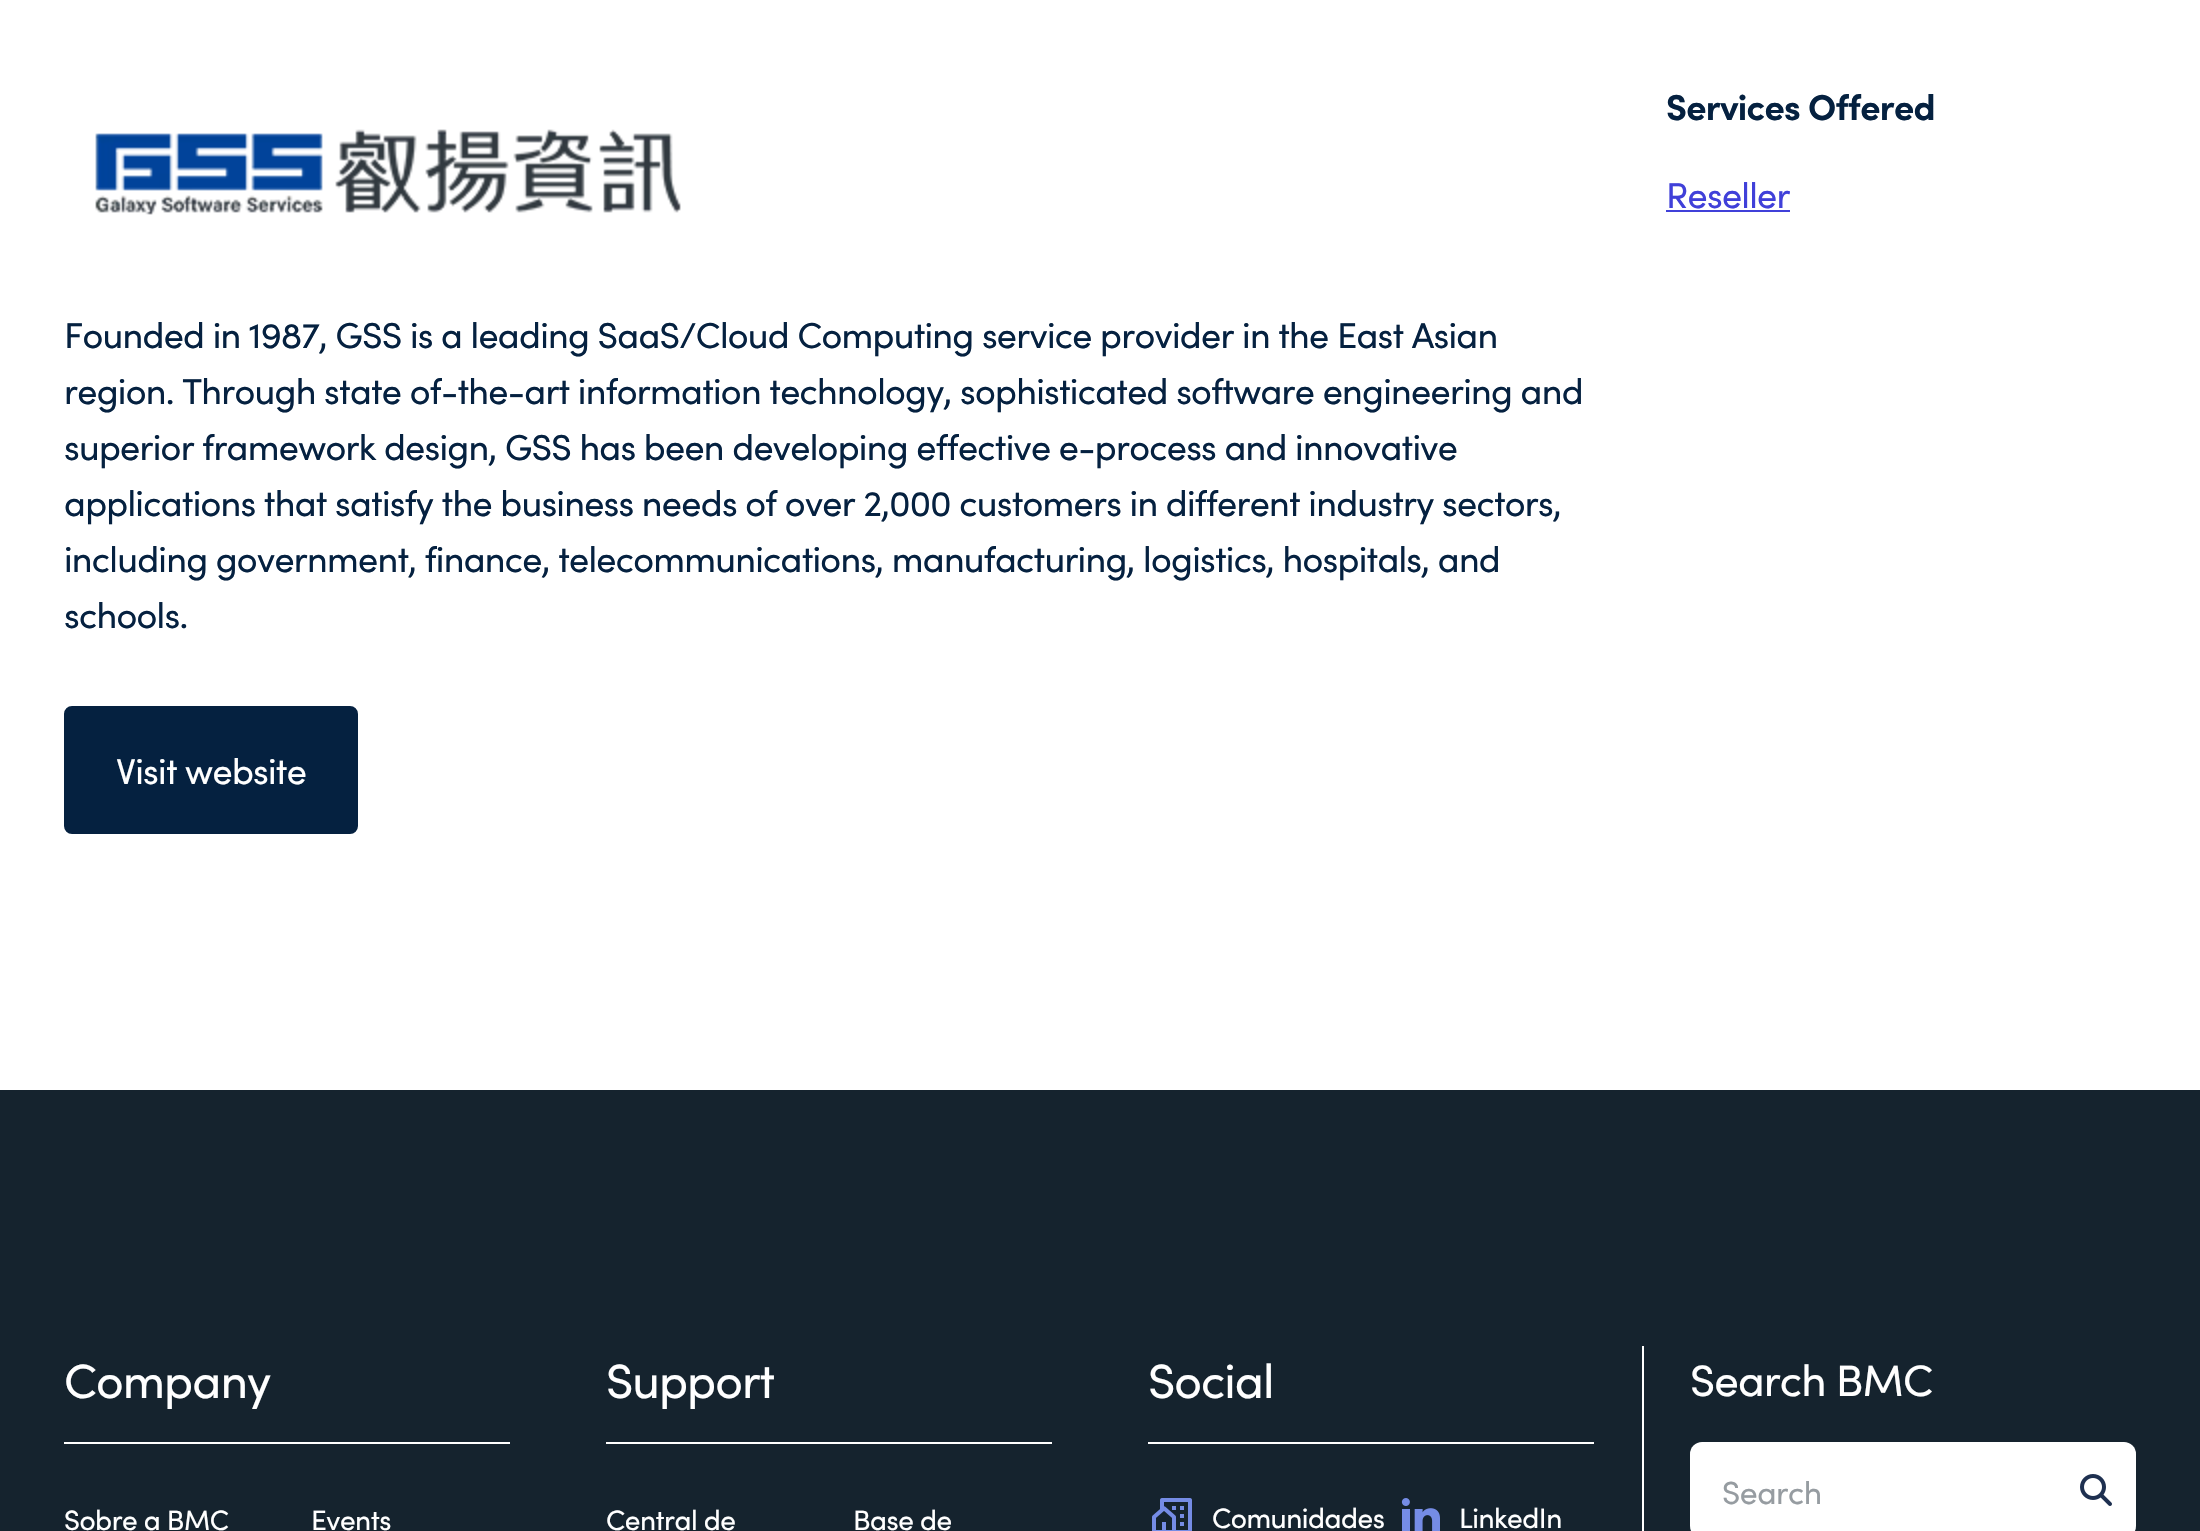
void draw(SkCanvas* canvas) {
  SkPaint paint;
  paint.setAntiAlias(true);
  auto face = [&](const char* family, int weight, float size, bool italic = false) {
    SkFontStyle style(weight, SkFontStyle::kNormal_Width,
      italic ? SkFontStyle::kItalic_Slant : SkFontStyle::kUpright_Slant);
    SkFont result(fontMgr->matchFamilyStyle(family, style), size);
    result.setSubpixel(true);
    return result;
  };
  auto writeSpaced = [&](const char* s, float x, float y, const SkFont& font, const SkPaint& ink, float letter, float word) {
    std::vector<SkGlyphID> glyphs(font.countText(s, strlen(s), SkTextEncoding::kUTF8));
    std::vector<float> xs(glyphs.size());
    font.textToGlyphs(s, strlen(s), SkTextEncoding::kUTF8, glyphs);
    font.getXPos(glyphs, xs, x);
    float extra = 0;
    for (size_t i = 0; i < glyphs.size(); i++) {
      xs[i] += extra;
      extra += letter + word * (glyphs[i] == font.unicharToGlyph(' '));
    }
    canvas->drawTextBlob(SkTextBlob::MakeFromPosHGlyphs(glyphs, xs, y, font), 0, 0, ink);
  };
  auto paste = [&](const char* path, float x, float y, float w, float h) {
    auto image = SkImages::DeferredFromEncodedData(SkData::MakeFromFileName(path));
    canvas->drawImageRect(image, SkRect::MakeXYWH(x, y, w, h), SkSamplingOptions());
  };
  canvas->clear(0xffffffff);
  paint.setColor(0xff4040d9);
  canvas->drawRect(SkRect::MakeXYWH(1666, 210, 124, 2), paint);
  paste("img/1.png", 95, 129, 586, 86);
  paint.setColor(0xff052140);
  canvas->drawRoundRect(SkRect::MakeXYWH(66, 708, 290, 124), 6, 6, paint);
  paint.setStroke(true);
  paint.setStrokeWidth(4);
  canvas->drawRoundRect(SkRect::MakeXYWH(66, 708, 290, 124), 6, 6, paint);
  paint.setStroke(false);
  {
    const struct { float x, y, w, h; SkColor color; } items[] = {
      {0, 1090, 2200, 441, 0xff15232e},
      {64, 1442, 446, 2, 0xffffffff},
      {606, 1442, 446, 2, 0xffffffff},
      {1148, 1442, 446, 2, 0xffffffff},
    };
    for (auto [x, y, w, h, color] : items) {
      paint.setColor(color);
      canvas->drawRect(SkRect::MakeXYWH(x, y, w, h), paint);
    }
  }
  paste("img/2.png", 1152, 1498, 40, 33);
  paste("img/3.png", 1401, 1498, 39, 33);
  canvas->drawRect(SkRect::MakeXYWH(1642, 1346, 2, 185), paint);
  canvas->drawRoundRect(SkRect::MakeXYWH(1690, 1442, 446, 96), 12, 12, paint);
  paste("img/4.png", 2080, 1474, 32, 32);
  auto f0 = face("Sofia", 700, 36);
  paint.setColor(0xff052140);
  writeSpaced("Services Offered", 1666, 120, f0, paint, -0.72f, 0);
  auto f1 = face("Sofia", 400, 36);
  paint.setColor(0xff4040d9);
  writeSpaced("Reseller", 1666, 208, f1, paint, -0.72f, 0);
  paint.setColor(0xff052140);
  {
    const struct { const char* s; float x, y; } items[] = {
      {"Founded in 1987, GSS is a leading SaaS/Cloud Computing service provider in the East Asian", 64, 348},
      {"region. Through state of-the-art information technology, sophisticated software engineering and", 64, 404},
      {"superior framework design, GSS has been developing effective e-process and innovative", 64, 460},
      {"applications that satisfy the business needs of over 2,000 customers in different industry sectors,", 64, 516},
      {"including government, finance, telecommunications, manufacturing, logistics, hospitals, and", 64, 572},
      {"schools.", 64, 628},
    };
    for (auto [s, x, y] : items) {
      writeSpaced(s, x, y, f1, paint, -0.72f, 0);
    }
  }
  paint.setColor(0xffffffff);
  writeSpaced("Visit website", 116, 784, f1, paint, -0.72f, 0);
  auto f2 = face("Sofia", 400, 48);
  writeSpaced("Company", 64, 1398, f2, paint, -1, 0);
  auto f3 = face("Sofia", 400, 28);
  writeSpaced("Sobre a BMC", 64, 1530, f3, paint, -0.5f, 0);
  writeSpaced("Events", 311, 1530, f3, paint, -0.5f, 0);
  writeSpaced("Support", 606, 1398, f2, paint, -1, 0);
  writeSpaced("Central de", 606, 1530, f3, paint, -0.5f, 0);
  writeSpaced("Base de", 853, 1530, f3, paint, -0.5f, 0);
  writeSpaced("Social", 1148, 1398, f2, paint, -1, 0);
  writeSpaced("Comunidades", 1212, 1528, f3, paint, -0.5f, 0);
  writeSpaced("LinkedIn", 1459, 1528, f3, paint, -0.5f, 0);
  auto f4 = face("Sofia", 400, 44);
  writeSpaced("Search BMC", 1690, 1396, f4, paint, -0.9f, 0);
  auto f5 = face("Sofia", 400, 32);
  paint.setColor(0xff969ca1);
  writeSpaced("Search", 1722, 1504, f5, paint, -0.5f, 0);
}
